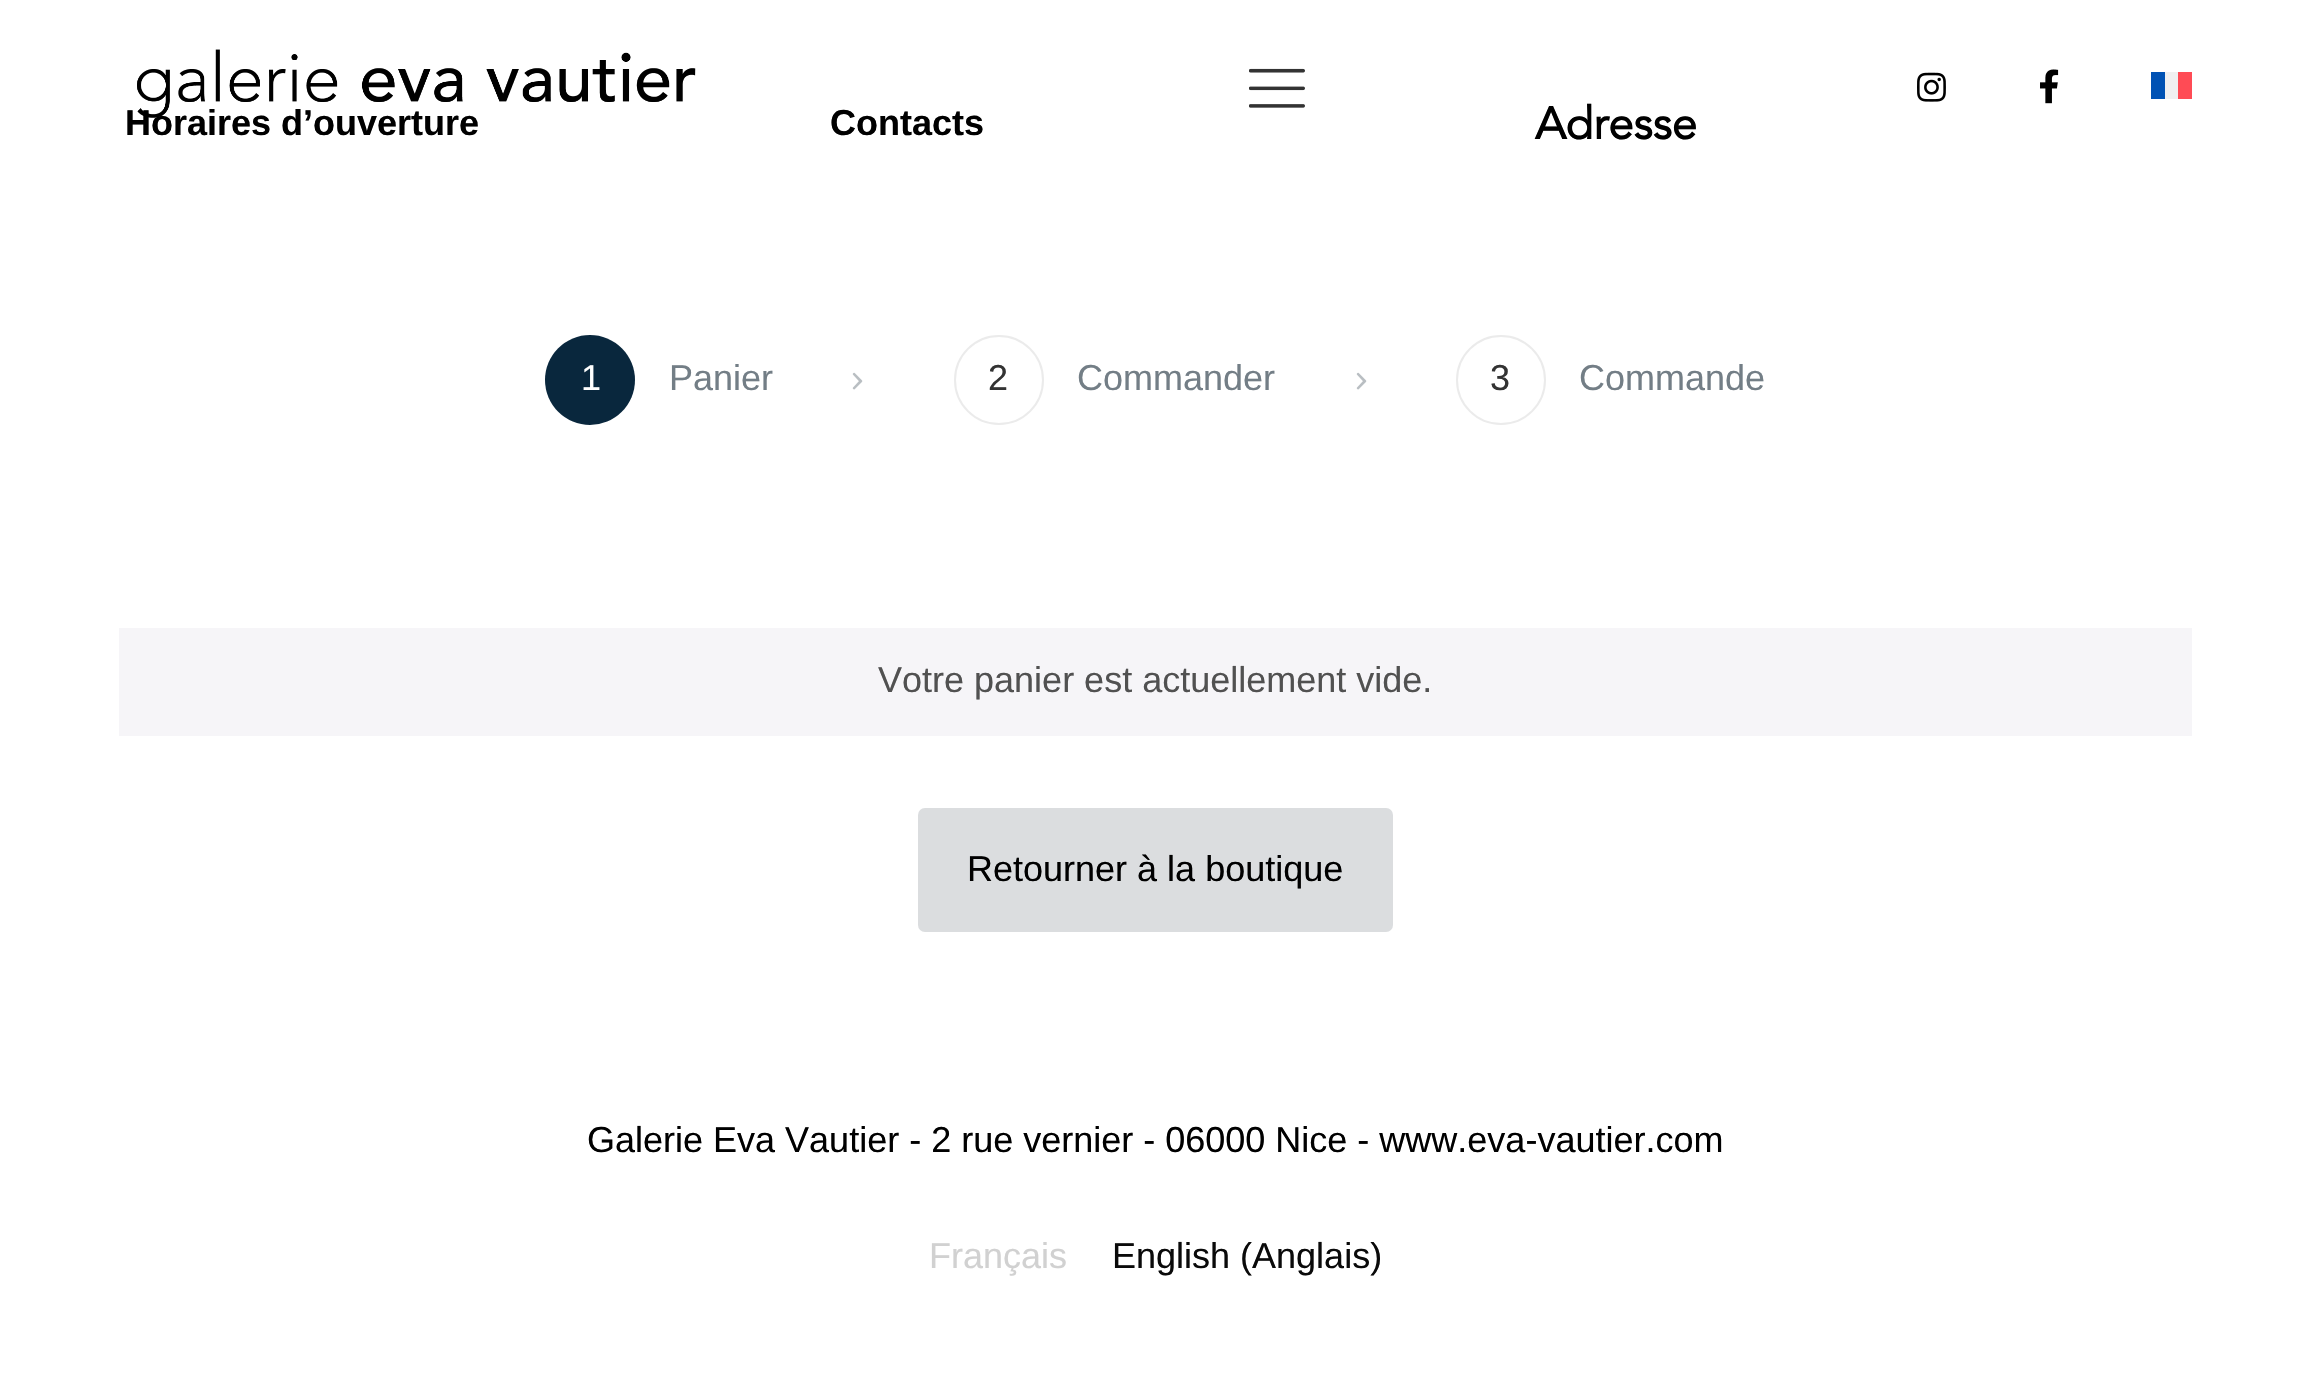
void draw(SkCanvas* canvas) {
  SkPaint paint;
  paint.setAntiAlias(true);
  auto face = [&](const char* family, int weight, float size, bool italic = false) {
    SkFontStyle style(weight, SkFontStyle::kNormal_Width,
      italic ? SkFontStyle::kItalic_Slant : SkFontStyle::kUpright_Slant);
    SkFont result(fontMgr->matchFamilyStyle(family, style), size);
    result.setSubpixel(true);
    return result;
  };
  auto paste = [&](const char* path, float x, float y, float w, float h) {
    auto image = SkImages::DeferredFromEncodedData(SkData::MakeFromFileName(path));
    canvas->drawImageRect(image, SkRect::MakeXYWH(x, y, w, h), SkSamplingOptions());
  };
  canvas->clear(0xffffffff);
  paste("img/2.png", 1249, 68, 56, 40);
  paste("img/3.png", 1917, 72, 29, 30);
  paste("img/4.png", 2040, 69, 19, 35);
  {
    const struct { float x, y, w, h; SkColor color; } items[] = {
      {2151, 72, 14, 27, 0xff0052b4},
      {2165, 72, 13, 27, 0xfff0f0f0},
      {2178, 72, 14, 27, 0xffff4b55},
    };
    for (auto [x, y, w, h, color] : items) {
      paint.setColor(color);
      canvas->drawRect(SkRect::MakeXYWH(x, y, w, h), paint);
    }
  }
  paint.setColor(0xff09273d);
  canvas->drawCircle(590, 380, 45, paint);
  paste("img/5.png", 852, 372, 11, 18);
  paint.setStroke(true);
  paint.setStrokeWidth(2);
  paint.setColor(0xffebebeb);
  canvas->drawCircle(999, 380, 44, paint);
  paste("img/5.png", 1356, 372, 11, 18);
  canvas->drawCircle(1501, 380, 44, paint);
  paint.setStroke(false);
  paint.setColor(0xfff6f5f8);
  canvas->drawRect(SkRect::MakeXYWH(119, 628, 2073, 108), paint);
  paint.setColor(0xffdbdddf);
  canvas->drawRoundRect(SkRect::MakeXYWH(918, 808, 475, 124), 7, 7, paint);
  auto f0 = face("Liberation Sans", 700, 36);
  paint.setColor(0xff000000);
  canvas->drawString("Horaires d’ouverture", 125, 135, f0, paint);
  paste("img/1.png", 137, 49, 559, 69);
  canvas->drawString("Contacts", 830, 135, f0, paint);
  auto f1 = face("Avenir", 700, 45);
  canvas->drawString("Adresse", 1535, 139, f1, paint);
  auto f2 = face("Liberation Sans", 400, 36);
  canvas->drawString("Galerie Eva Vautier - 2 rue vernier - 06000 Nice - www.eva-vautier.com", 587, 1152, f2, paint);
  paint.setColor(0xffd1d1d1);
  canvas->drawString("Français", 929, 1268, f2, paint);
  paint.setColor(0xff0a0a0a);
  canvas->drawString("English (Anglais)", 1112, 1268, f2, paint);
  paint.setColor(0xffffffff);
  canvas->drawString("1", 581, 390, f2, paint);
  paint.setColor(0xff737e86);
  canvas->drawString("Panier", 669, 390, f2, paint);
  paint.setColor(0xff333333);
  canvas->drawString("2", 988, 390, f2, paint);
  paint.setColor(0xff737e86);
  canvas->drawString("Commander", 1077, 390, f2, paint);
  paint.setColor(0xff333333);
  canvas->drawString("3", 1490, 390, f2, paint);
  paint.setColor(0xff737e86);
  canvas->drawString("Commande", 1579, 390, f2, paint);
  paint.setColor(0xff515151);
  canvas->drawString("Votre panier est actuellement vide.", 878, 692, f2, paint);
  paint.setColor(0xff000000);
  canvas->drawString("Retourner à la boutique", 967, 881, f2, paint);
}
